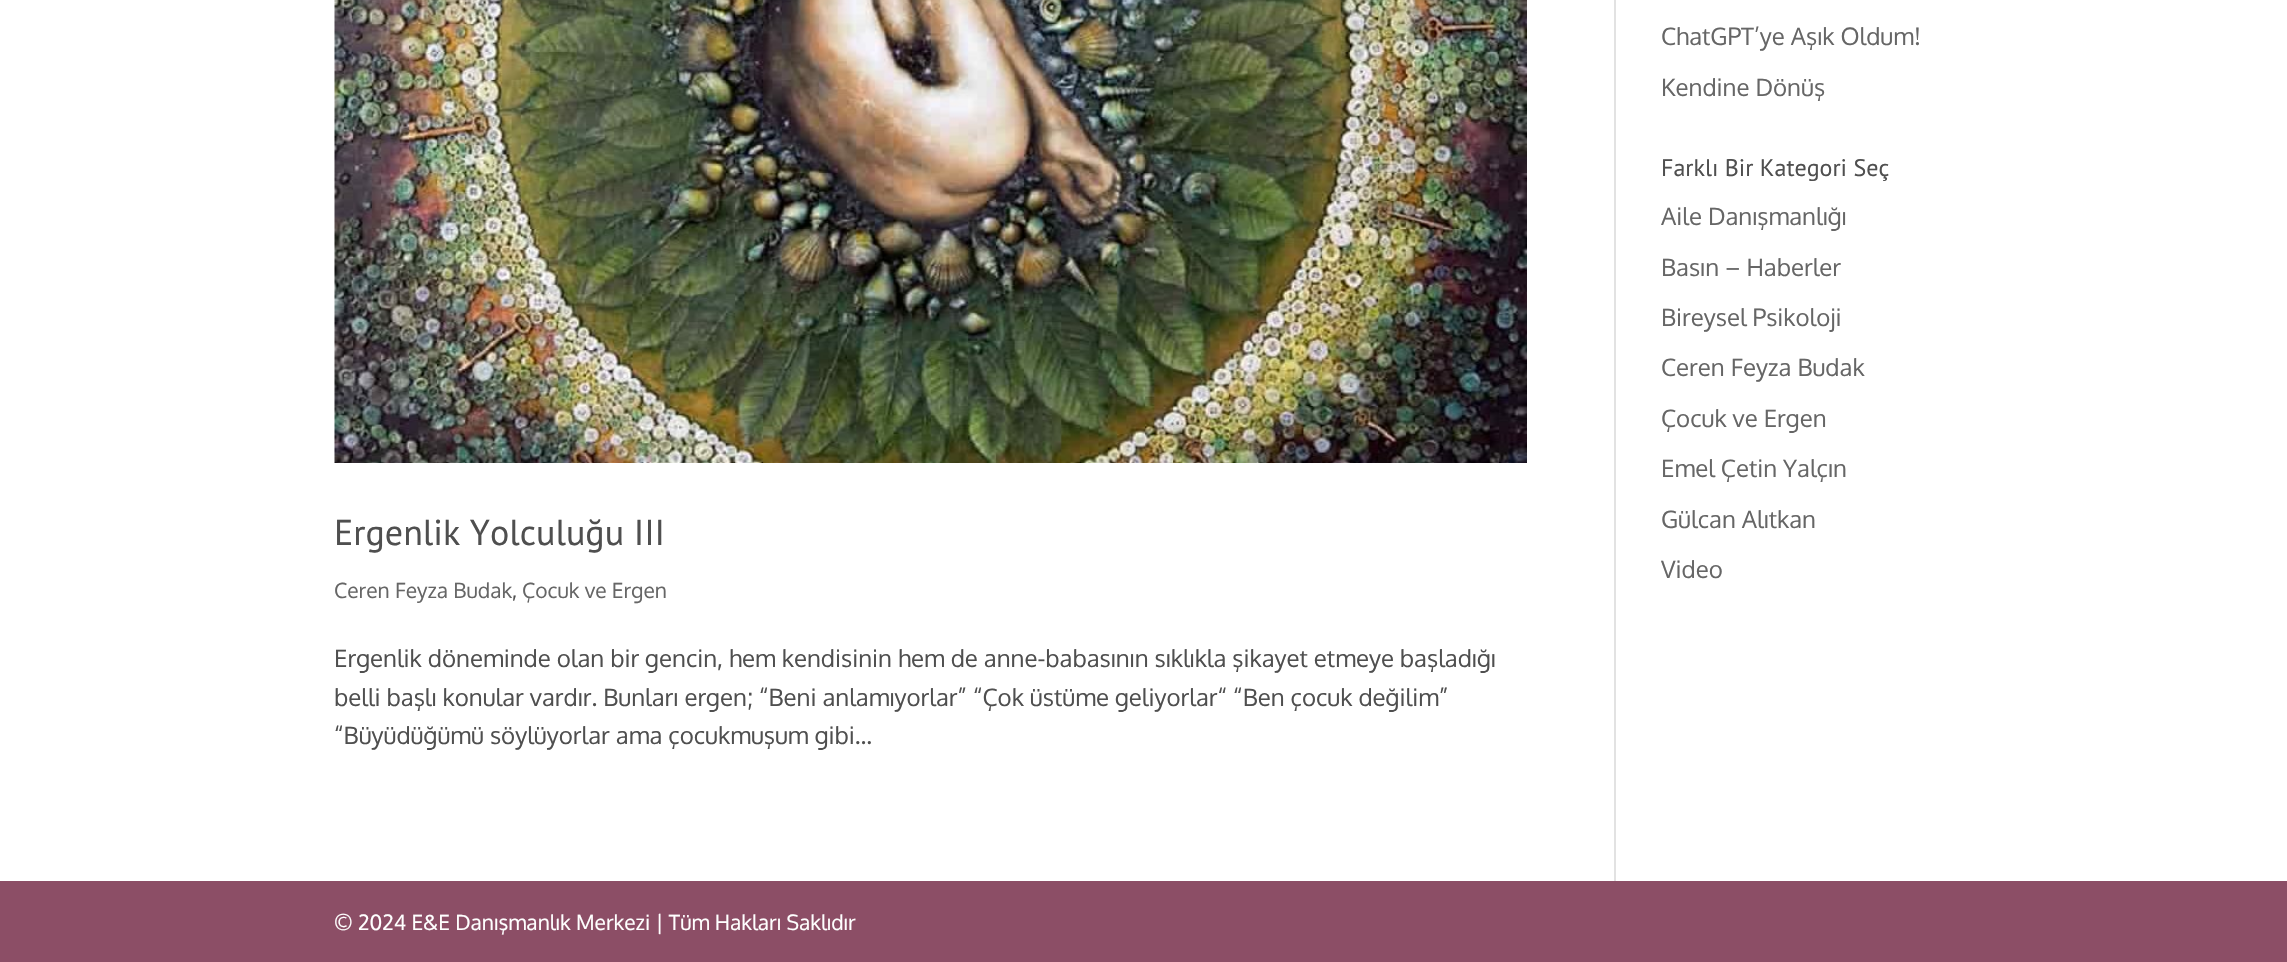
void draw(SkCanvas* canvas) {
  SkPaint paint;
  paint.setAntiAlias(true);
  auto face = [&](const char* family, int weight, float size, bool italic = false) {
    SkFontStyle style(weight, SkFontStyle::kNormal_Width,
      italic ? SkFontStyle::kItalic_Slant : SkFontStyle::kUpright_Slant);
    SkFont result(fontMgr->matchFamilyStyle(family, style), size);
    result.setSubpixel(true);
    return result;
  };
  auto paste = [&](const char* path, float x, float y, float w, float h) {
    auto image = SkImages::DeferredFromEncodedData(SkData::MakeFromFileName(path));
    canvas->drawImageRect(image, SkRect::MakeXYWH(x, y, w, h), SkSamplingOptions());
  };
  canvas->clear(0xffffffff);
  paint.setColor(0xffe2e2e2);
  canvas->drawRect(SkRect::MakeXYWH(1614, 0, 2, 881), paint);
  paste("img/1.png", 334, 0, 1193, 463);
  paint.setColor(0xff8c4e66);
  canvas->drawRect(SkRect::MakeXYWH(0, 881, 2287, 81), paint);
  auto f0 = face("Oxygen", 400, 24);
  paint.setColor(0xff666666);
  canvas->drawString("ChatGPT’ye Aşık Oldum!", 1661, 45, f0, paint);
  canvas->drawString("Kendine Dönüş", 1661, 96, f0, paint);
  auto f1 = face("PT Sans", 400, 24);
  paint.setColor(0xff4f4f4f);
  canvas->drawString("Farklı Bir Kategori Seç", 1661, 176, f1, paint);
  paint.setColor(0xff666666);
  {
    const struct { const char* s; float x, y; } items[] = {
      {"Aile Danışmanlığı", 1661, 225},
      {"Basın – Haberler", 1661, 276},
      {"Bireysel Psikoloji", 1661, 326},
      {"Ceren Feyza Budak", 1661, 376},
      {"Çocuk ve Ergen", 1661, 427},
      {"Emel Çetin Yalçın", 1661, 477},
      {"Gülcan Alıtkan", 1661, 528},
      {"Video", 1661, 578},
    };
    for (auto [s, x, y] : items) {
      canvas->drawString(s, x, y, f0, paint);
    }
  }
  auto f2 = face("PT Sans", 400, 36);
  paint.setColor(0xff4f4f4f);
  canvas->drawString("Ergenlik Yolculuğu III", 334, 545, f2, paint);
  auto f3 = face("Oxygen", 400, 21);
  paint.setColor(0xff666666);
  canvas->drawString("Ceren Feyza Budak", 334, 598, f3, paint);
  paint.setColor(0xff4f4f4f);
  canvas->drawString(",", 512, 598, f3, paint);
  paint.setColor(0xff666666);
  canvas->drawString("Çocuk ve Ergen", 522, 598, f3, paint);
  paint.setColor(0xff4f4f4f);
  {
    const struct { const char* s; float x, y; } items[] = {
      {"Ergenlik döneminde olan bir gencin, hem kendisinin hem de anne-babasının sıklıkla şikayet etmeye başladığı", 334, 667},
      {"belli başlı konular vardır. Bunları ergen; “Beni anlamıyorlar” “Çok üstüme geliyorlar“ “Ben çocuk değilim”", 334, 706},
      {"“Büyüdüğümü söylüyorlar ama çocukmuşum gibi...", 334, 744},
    };
    for (auto [s, x, y] : items) {
      canvas->drawString(s, x, y, f0, paint);
    }
  }
  paint.setColor(0xffffffff);
  canvas->drawString("© 2024 E&E Danışmanlık Merkezi | Tüm Hakları Saklıdır", 334, 930, f3, paint);
}
